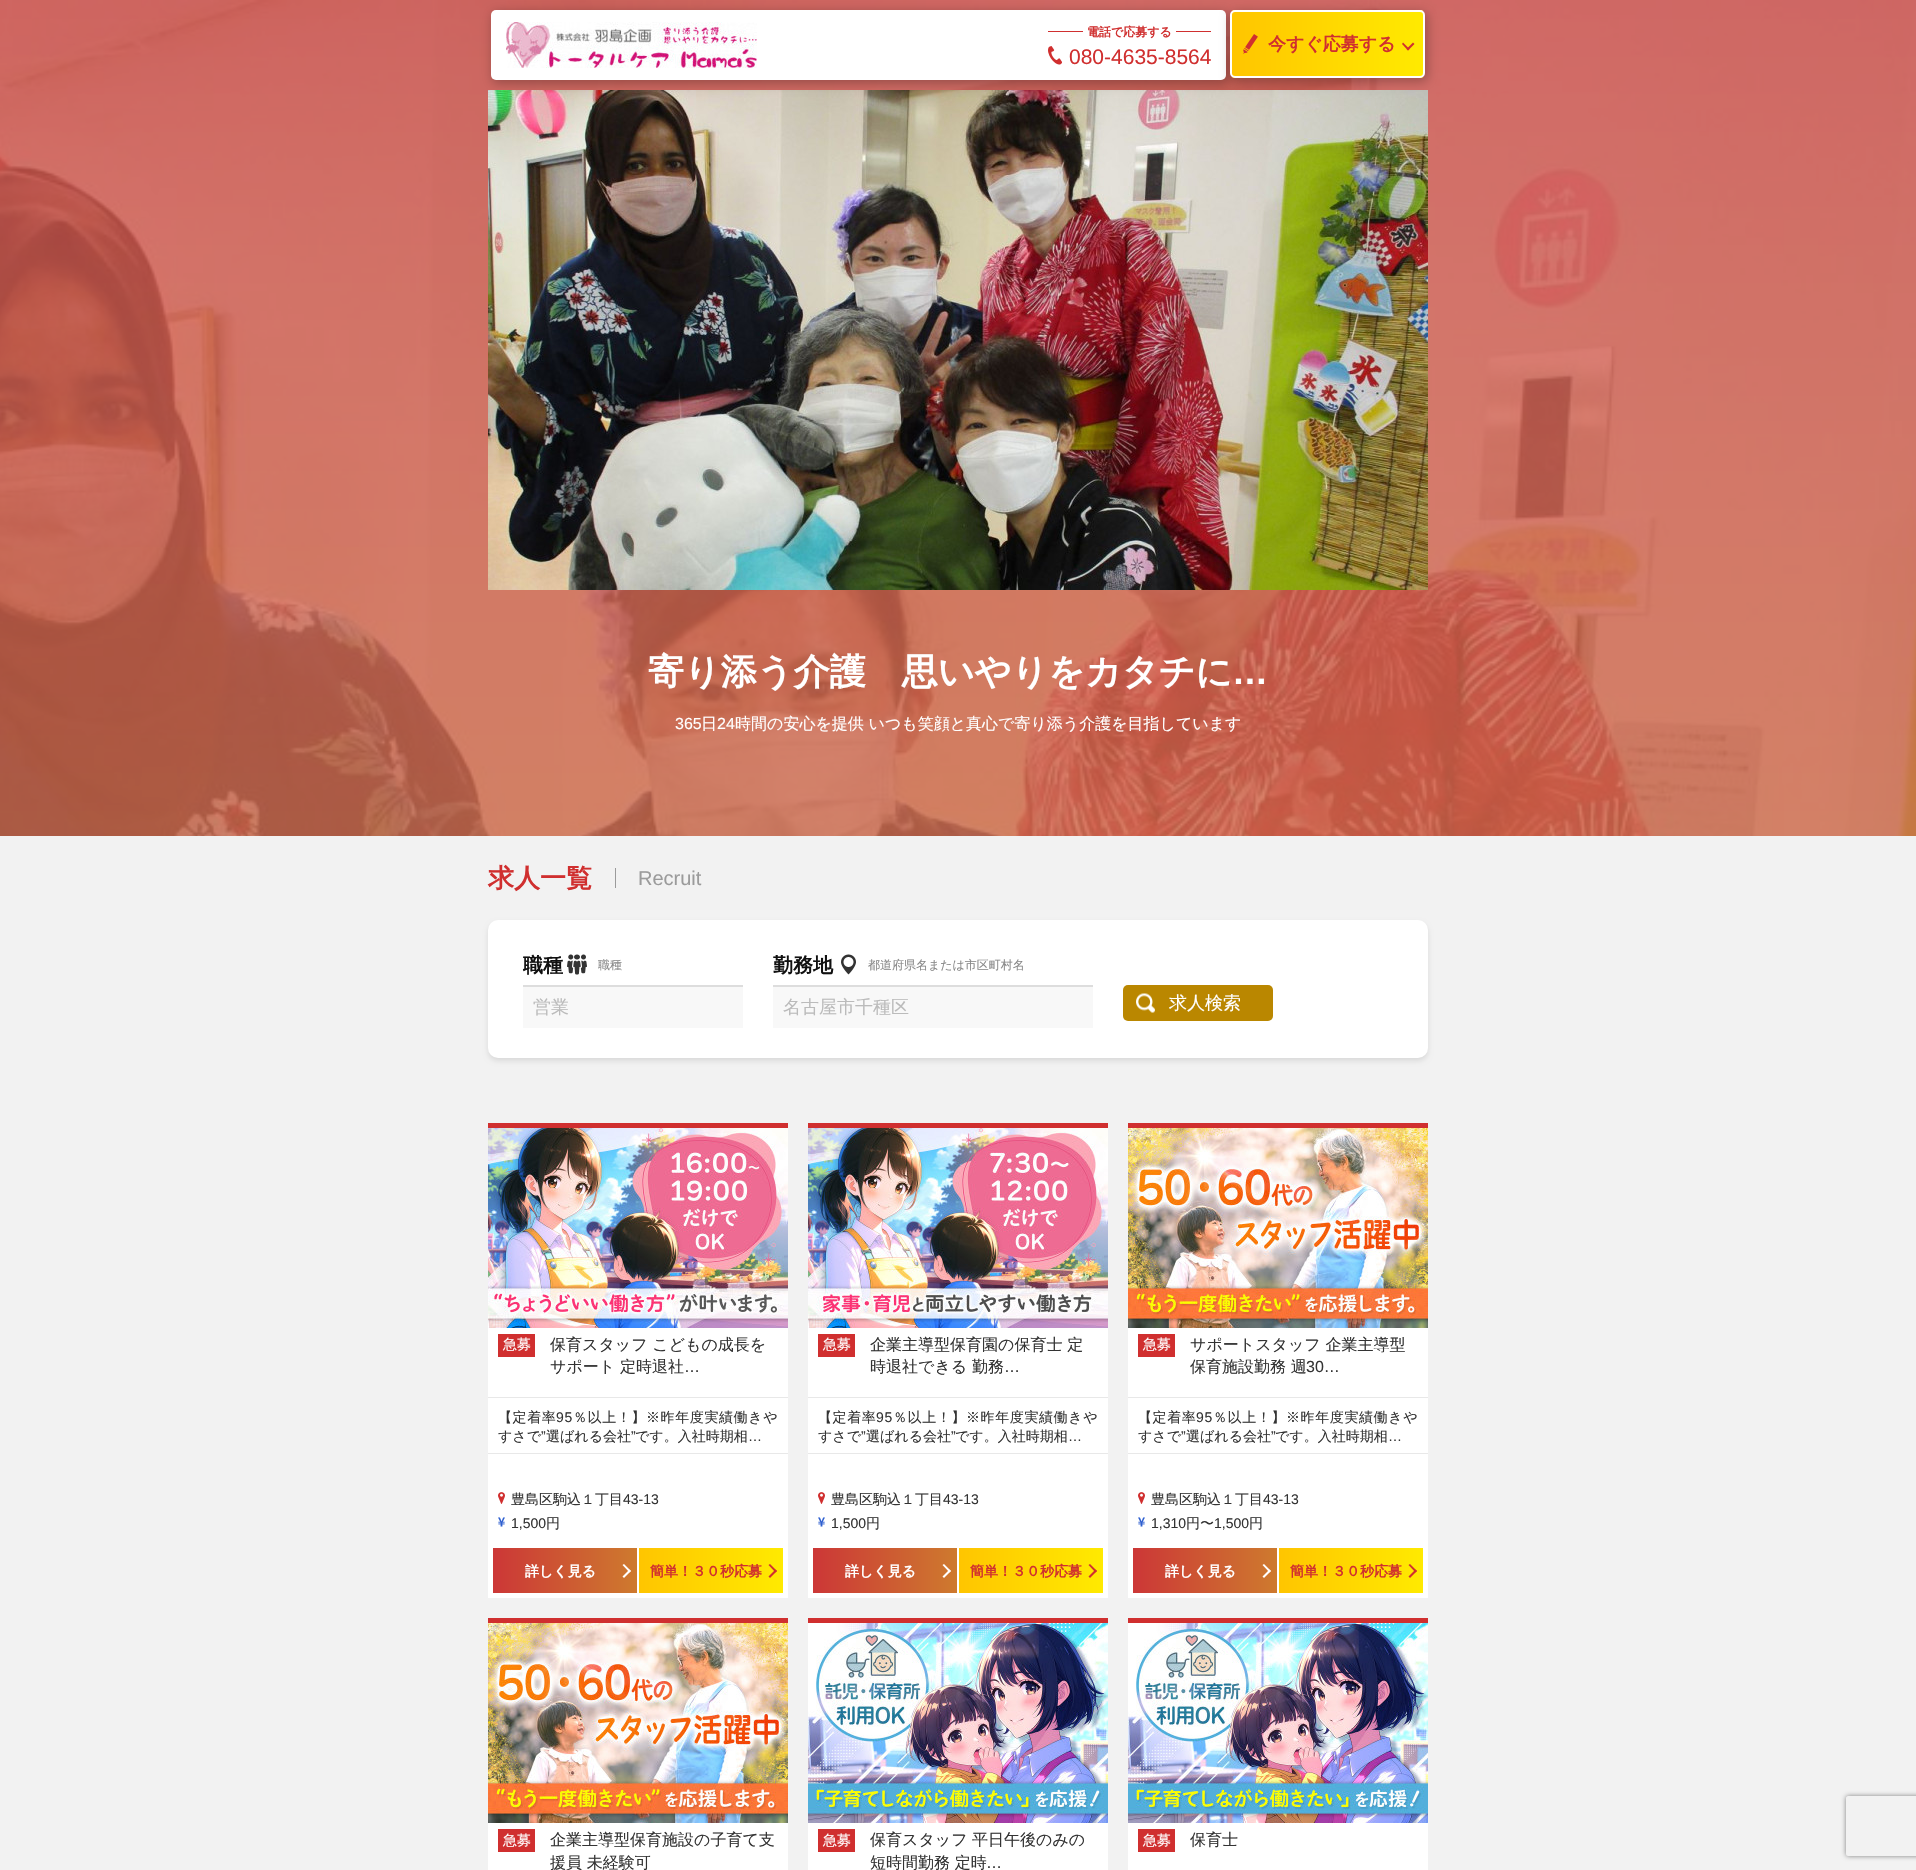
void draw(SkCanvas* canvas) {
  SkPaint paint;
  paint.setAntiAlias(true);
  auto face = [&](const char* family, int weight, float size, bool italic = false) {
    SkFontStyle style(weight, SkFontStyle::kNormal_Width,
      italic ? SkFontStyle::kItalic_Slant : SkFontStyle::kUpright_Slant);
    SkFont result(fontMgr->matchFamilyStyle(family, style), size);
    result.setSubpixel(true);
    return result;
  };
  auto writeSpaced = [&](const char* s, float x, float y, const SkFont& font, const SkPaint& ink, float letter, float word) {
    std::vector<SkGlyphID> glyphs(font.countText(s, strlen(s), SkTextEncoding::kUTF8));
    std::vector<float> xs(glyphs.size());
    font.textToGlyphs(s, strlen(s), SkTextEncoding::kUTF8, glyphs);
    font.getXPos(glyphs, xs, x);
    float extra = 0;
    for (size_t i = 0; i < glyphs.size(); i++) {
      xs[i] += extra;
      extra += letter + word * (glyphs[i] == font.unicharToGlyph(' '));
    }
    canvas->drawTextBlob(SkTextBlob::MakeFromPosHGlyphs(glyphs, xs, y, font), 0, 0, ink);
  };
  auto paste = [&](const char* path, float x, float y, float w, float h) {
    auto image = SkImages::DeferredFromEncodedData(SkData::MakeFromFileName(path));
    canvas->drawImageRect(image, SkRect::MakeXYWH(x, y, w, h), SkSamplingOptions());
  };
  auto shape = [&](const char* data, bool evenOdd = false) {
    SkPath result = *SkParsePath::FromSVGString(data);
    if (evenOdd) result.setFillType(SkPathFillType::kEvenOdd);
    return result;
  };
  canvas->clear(0xffffffff);
  paste("img/1.png", 0, 0, 1916, 836);
  paste("img/5.png", 488, 90, 940, 500);
  paint.setColor(0x40000000);
  paint.setMaskFilter(SkMaskFilter::MakeBlur(kNormal_SkBlurStyle, 5.5f));
  canvas->drawRoundRect(SkRect::MakeXYWH(492, 12, 737, 72), 6, 6, paint);
  paint.setMaskFilter(nullptr);
  paint.setColor(0xffffffff);
  canvas->drawRoundRect(SkRect::MakeXYWH(491, 10, 735, 70), 5, 5, paint);
  paste("img/2.png", 506, 22, 251, 46);
  paint.setColor(0xffd02f2f);
  canvas->drawRect(SkRect::MakeXYWH(1048, 31, 35, 1), paint);
  canvas->drawRect(SkRect::MakeXYWH(1176, 31, 35, 1), paint);
  paste("img/3.png", 1048, 46, 14, 19);
  paint.setColor(0x40000000);
  paint.setMaskFilter(SkMaskFilter::MakeBlur(kNormal_SkBlurStyle, 5.5f));
  canvas->drawRoundRect(SkRect::MakeXYWH(1231, 12, 197, 70), 6, 6, paint);
  paint.setMaskFilter(nullptr);
  canvas->save();
  canvas->clipPath(shape("M1235 10H1420C1423 10 1425 12 1425 15V73C1425 76 1423 78 1420 78H1235C1232 78 1230 76 1230 73V15C1230 12 1232 10 1235 10Z"), true);
  {
    const SkColor colors[] = {0xffffc500, 0xffffea00};
    const float stops[] = {0, 1};
    const SkPoint ends[] = {{1232, 44}, {1423, 44}};
    paint.setShader(SkGradientShader::MakeLinear(ends, colors, stops, 2, SkTileMode::kClamp));
    paint.setAlpha(255);
  }
  canvas->drawRect(SkRect::MakeXYWH(1232, 10, 191, 68), paint);
  canvas->restore();
  paint.setStroke(true);
  paint.setStrokeWidth(2);
  paint.setShader(nullptr);
  paint.setColor(0xffffffff);
  canvas->drawRoundRect(SkRect::MakeXYWH(1231, 11, 193, 66), 4, 4, paint);
  paste("img/4.png", 1243, 34, 15, 20);
  paint.setStroke(false);
  paint.setColor(0xffd02f2f);
  canvas->drawPath(shape("M1413 42.5L1414.5 44L1408 50.5L1406.5 49Z"), paint);
  canvas->drawPath(shape("M1403 42.5L1409.5 49L1408 50.5L1402 44Z"), paint);
  paint.setColor(0xfff2f2f2);
  canvas->drawRect(SkRect::MakeXYWH(0, 836, 1916, 1034), paint);
  paint.setColor(0xff9b9b9b);
  canvas->drawRect(SkRect::MakeXYWH(615, 868, 1, 20), paint);
  paint.setColor(0x1a000000);
  paint.setMaskFilter(SkMaskFilter::MakeBlur(kNormal_SkBlurStyle, 2.5f));
  canvas->drawRoundRect(SkRect::MakeXYWH(488, 923, 940, 138), 10, 10, paint);
  paint.setMaskFilter(nullptr);
  paint.setColor(0xffffffff);
  canvas->drawRoundRect(SkRect::MakeXYWH(488, 920, 940, 138), 10, 10, paint);
  paste("img/6.png", 567, 954, 20, 21);
  paint.setColor(0xfff8f8f8);
  canvas->drawRect(SkRect::MakeXYWH(523, 987, 220, 41), paint);
  paint.setColor(0xffdddddd);
  canvas->drawRect(SkRect::MakeXYWH(523, 985, 220, 2), paint);
  paste("img/7.png", 841, 954, 15, 21);
  paint.setColor(0xfff8f8f8);
  canvas->drawRect(SkRect::MakeXYWH(773, 987, 320, 41), paint);
  paint.setColor(0xffdddddd);
  canvas->drawRect(SkRect::MakeXYWH(773, 985, 320, 2), paint);
  paint.setColor(0xffba8700);
  canvas->drawRoundRect(SkRect::MakeXYWH(1123, 985, 150, 36), 5, 5, paint);
  paste("img/8.png", 1136, 993, 19, 20);
  paint.setColor(0xffd02f2f);
  canvas->drawRect(SkRect::MakeXYWH(488, 1123, 300, 5), paint);
  paste("img/9.png", 488, 1128, 300, 200);
  {
    const struct { float x, y, w, h; SkColor color; } items[] = {
      {488, 1328, 300, 125, 0xffffffff},
      {498, 1334, 37, 23, 0xffd02f2f},
      {488, 1397, 300, 1, 0xffe8e8e8},
      {488, 1454, 300, 144, 0xffffffff},
      {488, 1453, 300, 1, 0xffe8e8e8},
    };
    for (auto [x, y, w, h, color] : items) {
      paint.setColor(color);
      canvas->drawRect(SkRect::MakeXYWH(x, y, w, h), paint);
    }
  }
  paste("img/10.png", 498, 1492, 7, 12);
  paste("img/11.png", 498, 1517, 7, 10);
  {
    const SkColor colors[] = {0xffcc3737, 0xffce7a2e};
    const float stops[] = {0, 1};
    const SkPoint ends[] = {{493, 1571}, {637, 1571}};
    paint.setShader(SkGradientShader::MakeLinear(ends, colors, stops, 2, SkTileMode::kClamp));
    paint.setAlpha(255);
  }
  canvas->drawRect(SkRect::MakeXYWH(493, 1548, 144, 45), paint);
  paint.setShader(nullptr);
  paint.setColor(0xffffffff);
  canvas->drawPath(shape("M622.5 1565L624 1564L631 1571L629.5 1572.5Z"), paint);
  canvas->drawPath(shape("M622.5 1576.5L629.5 1569.5L631 1571L624 1578Z"), paint);
  {
    const SkColor colors[] = {0xffffc500, 0xffffea00};
    const float stops[] = {0, 1};
    const SkPoint ends[] = {{639, 1571}, {783, 1571}};
    paint.setShader(SkGradientShader::MakeLinear(ends, colors, stops, 2, SkTileMode::kClamp));
    paint.setAlpha(255);
  }
  canvas->drawRect(SkRect::MakeXYWH(639, 1548, 144, 45), paint);
  paint.setShader(nullptr);
  paint.setColor(0xffd02f2f);
  canvas->drawPath(shape("M768.5 1565L770 1564L777 1571L775.5 1572.5Z"), paint);
  canvas->drawPath(shape("M768.5 1576.5L775.5 1569.5L777 1571L770 1578Z"), paint);
  canvas->drawRect(SkRect::MakeXYWH(808, 1123, 300, 5), paint);
  paste("img/12.png", 808, 1128, 300, 200);
  {
    const struct { float x, y, w, h; SkColor color; } items[] = {
      {808, 1328, 300, 125, 0xffffffff},
      {818, 1334, 37, 23, 0xffd02f2f},
      {808, 1397, 300, 1, 0xffe8e8e8},
      {808, 1454, 300, 144, 0xffffffff},
      {808, 1453, 300, 1, 0xffe8e8e8},
    };
    for (auto [x, y, w, h, color] : items) {
      paint.setColor(color);
      canvas->drawRect(SkRect::MakeXYWH(x, y, w, h), paint);
    }
  }
  paste("img/10.png", 818, 1492, 7, 12);
  paste("img/11.png", 818, 1517, 7, 10);
  {
    const SkColor colors[] = {0xffcc3737, 0xffce7a2e};
    const float stops[] = {0, 1};
    const SkPoint ends[] = {{813, 1571}, {957, 1571}};
    paint.setShader(SkGradientShader::MakeLinear(ends, colors, stops, 2, SkTileMode::kClamp));
    paint.setAlpha(255);
  }
  canvas->drawRect(SkRect::MakeXYWH(813, 1548, 144, 45), paint);
  paint.setShader(nullptr);
  paint.setColor(0xffffffff);
  canvas->drawPath(shape("M942.5 1565L944 1564L951 1571L949.5 1572.5Z"), paint);
  canvas->drawPath(shape("M942.5 1576.5L949.5 1569.5L951 1571L944 1578Z"), paint);
  {
    const SkColor colors[] = {0xffffc500, 0xffffea00};
    const float stops[] = {0, 1};
    const SkPoint ends[] = {{959, 1571}, {1103, 1571}};
    paint.setShader(SkGradientShader::MakeLinear(ends, colors, stops, 2, SkTileMode::kClamp));
    paint.setAlpha(255);
  }
  canvas->drawRect(SkRect::MakeXYWH(959, 1548, 144, 45), paint);
  paint.setShader(nullptr);
  paint.setColor(0xffd02f2f);
  canvas->drawPath(shape("M1088.5 1565L1090 1564L1097 1571L1095.5 1572.5Z"), paint);
  canvas->drawPath(shape("M1088.5 1576.5L1095.5 1569.5L1097 1571L1090 1578Z"), paint);
  canvas->drawRect(SkRect::MakeXYWH(1128, 1123, 300, 5), paint);
  paste("img/13.png", 1128, 1128, 300, 200);
  {
    const struct { float x, y, w, h; SkColor color; } items[] = {
      {1128, 1328, 300, 125, 0xffffffff},
      {1138, 1334, 37, 23, 0xffd02f2f},
      {1128, 1397, 300, 1, 0xffe8e8e8},
      {1128, 1454, 300, 144, 0xffffffff},
      {1128, 1453, 300, 1, 0xffe8e8e8},
    };
    for (auto [x, y, w, h, color] : items) {
      paint.setColor(color);
      canvas->drawRect(SkRect::MakeXYWH(x, y, w, h), paint);
    }
  }
  paste("img/10.png", 1138, 1492, 7, 12);
  paste("img/11.png", 1138, 1517, 7, 10);
  {
    const SkColor colors[] = {0xffcc3737, 0xffce7a2e};
    const float stops[] = {0, 1};
    const SkPoint ends[] = {{1133, 1571}, {1277, 1571}};
    paint.setShader(SkGradientShader::MakeLinear(ends, colors, stops, 2, SkTileMode::kClamp));
    paint.setAlpha(255);
  }
  canvas->drawRect(SkRect::MakeXYWH(1133, 1548, 144, 45), paint);
  paint.setShader(nullptr);
  paint.setColor(0xffffffff);
  canvas->drawPath(shape("M1262.5 1565L1264 1564L1271 1571L1269.5 1572.5Z"), paint);
  canvas->drawPath(shape("M1262.5 1576.5L1269.5 1569.5L1271 1571L1264 1578Z"), paint);
  {
    const SkColor colors[] = {0xffffc500, 0xffffea00};
    const float stops[] = {0, 1};
    const SkPoint ends[] = {{1279, 1571}, {1423, 1571}};
    paint.setShader(SkGradientShader::MakeLinear(ends, colors, stops, 2, SkTileMode::kClamp));
    paint.setAlpha(255);
  }
  canvas->drawRect(SkRect::MakeXYWH(1279, 1548, 144, 45), paint);
  paint.setShader(nullptr);
  paint.setColor(0xffd02f2f);
  canvas->drawPath(shape("M1408.5 1565L1410 1564L1417 1571L1415.5 1572.5Z"), paint);
  canvas->drawPath(shape("M1408.5 1576.5L1415.5 1569.5L1417 1571L1410 1578Z"), paint);
  canvas->drawRect(SkRect::MakeXYWH(488, 1618, 300, 5), paint);
  paste("img/13.png", 488, 1623, 300, 200);
  {
    const struct { float x, y, w, h; SkColor color; } items[] = {
      {488, 1823, 300, 47, 0xffffffff},
      {498, 1829, 37, 23, 0xffd02f2f},
      {808, 1618, 300, 5, 0xffd02f2f},
    };
    for (auto [x, y, w, h, color] : items) {
      paint.setColor(color);
      canvas->drawRect(SkRect::MakeXYWH(x, y, w, h), paint);
    }
  }
  paste("img/14.png", 808, 1623, 300, 200);
  {
    const struct { float x, y, w, h; SkColor color; } items[] = {
      {808, 1823, 300, 47, 0xffffffff},
      {818, 1829, 37, 23, 0xffd02f2f},
      {1128, 1618, 300, 5, 0xffd02f2f},
    };
    for (auto [x, y, w, h, color] : items) {
      paint.setColor(color);
      canvas->drawRect(SkRect::MakeXYWH(x, y, w, h), paint);
    }
  }
  paste("img/14.png", 1128, 1623, 300, 200);
  paint.setColor(0xffffffff);
  canvas->drawRect(SkRect::MakeXYWH(1128, 1823, 300, 47), paint);
  paint.setColor(0xffd02f2f);
  canvas->drawRect(SkRect::MakeXYWH(1138, 1829, 37, 23), paint);
  canvas->save();
  canvas->clipPath(shape("M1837 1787H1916V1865H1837ZM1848 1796H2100C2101 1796 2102 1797 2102 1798V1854C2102 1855 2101 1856 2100 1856H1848C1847 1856 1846 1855 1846 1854V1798C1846 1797 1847 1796 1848 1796Z", true), true);
  paint.setColor(0xff808080);
  paint.setMaskFilter(SkMaskFilter::MakeBlur(kNormal_SkBlurStyle, 2.5f));
  canvas->drawRoundRect(SkRect::MakeXYWH(1846, 1796, 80, 60), 2, 2, paint);
  paint.setMaskFilter(nullptr);
  canvas->restore();
  auto f0 = face("WenQuanYi Zen Hei", 700, 12);
  paint.setColor(0xffd02f2f);
  canvas->drawString("電話で応募する", 1087, 36, f0, paint);
  auto f1 = face("Liberation Sans", 400, 21);
  canvas->drawString("080-4635-8564", 1069, 64, f1, paint);
  auto f2 = face("WenQuanYi Zen Hei", 700, 18);
  canvas->drawString("今すぐ応募する", 1268, 50, f2, paint);
  auto f3 = face("WenQuanYi Zen Hei", 700, 36);
  paint.setColor(0xffffffff);
  canvas->drawString("寄り添う介護　思いやりをカタチに", 648, 684, f3, paint);
  auto f4 = face("Liberation Sans", 700, 36);
  canvas->drawString("…", 1232, 684, f4, paint);
  auto f5 = face("Liberation Sans", 400, 16);
  canvas->drawString("365", 675, 729, f5, paint);
  auto f6 = face("WenQuanYi Zen Hei", 500, 16);
  canvas->drawString("日", 701, 729, f6, paint);
  canvas->drawString("24", 717, 729, f5, paint);
  canvas->drawString("時間の安心を提供 いつも笑顔と真心で寄り添う介護を目指しています", 735, 729, f6, paint);
  auto f7 = face("WenQuanYi Zen Hei", 700, 26);
  paint.setColor(0xffd02f2f);
  canvas->drawString("求人一覧", 488, 887, f7, paint);
  auto f8 = face("Liberation Sans", 400, 20);
  paint.setColor(0xff9b9b9b);
  canvas->drawString("Recruit", 638, 885, f8, paint);
  auto f9 = face("WenQuanYi Zen Hei", 700, 20);
  paint.setColor(0xff111111);
  canvas->drawString("職種", 523, 972, f9, paint);
  auto f10 = face("WenQuanYi Zen Hei", 500, 12);
  paint.setColor(0xff888888);
  canvas->drawString("職種", 598, 969, f10, paint);
  auto f11 = face("WenQuanYi Zen Hei", 500, 18);
  paint.setColor(0xffbbbbbb);
  canvas->drawString("営業", 533, 1013, f11, paint);
  paint.setColor(0xff111111);
  canvas->drawString("勤務地", 773, 972, f9, paint);
  paint.setColor(0xff888888);
  canvas->drawString("都道府県名または市区町村名", 868, 969, f10, paint);
  paint.setColor(0xffbbbbbb);
  canvas->drawString("名古屋市千種区", 783, 1013, f11, paint);
  paint.setColor(0xffffffff);
  canvas->drawString("求人検索", 1169, 1009, f11, paint);
  auto f12 = face("WenQuanYi Zen Hei", 500, 14);
  canvas->drawString("急募", 503, 1349, f12, paint);
  paint.setColor(0xff333333);
  canvas->drawString("保育スタッフ こどもの成長を", 550, 1350, f6, paint);
  canvas->drawString("サポート 定時退社", 550, 1372, f6, paint);
  canvas->drawString("…", 684, 1372, f5, paint);
  writeSpaced("【定着率", 498, 1422, f12, paint, 0.6f, 0);
  auto f13 = face("Liberation Sans", 400, 14);
  writeSpaced("95", 556, 1422, f13, paint, 0.6f, 0);
  writeSpaced("％以上！】※昨年度実績働きや", 573, 1422, f12, paint, 0.6f, 0);
  canvas->drawString("すさで", 498, 1441, f12, paint);
  canvas->drawString("”", 541, 1441, f13, paint);
  canvas->drawString("選ばれる会社", 546, 1441, f12, paint);
  canvas->drawString("”", 631, 1441, f13, paint);
  canvas->drawString("です。入社時期相", 635, 1441, f12, paint);
  canvas->drawString("…", 748, 1441, f13, paint);
  canvas->drawString("豊島区駒込１丁目", 511, 1504, f12, paint);
  canvas->drawString("43-13", 623, 1504, f13, paint);
  canvas->drawString("1,500", 511, 1528, f13, paint);
  canvas->drawString("円", 546, 1528, f12, paint);
  auto f14 = face("WenQuanYi Zen Hei", 700, 14);
  paint.setColor(0xffffffff);
  canvas->drawString("詳しく見る", 525, 1576, f14, paint);
  paint.setColor(0xffd02f2f);
  canvas->drawString("簡単！３０秒応募", 650, 1576, f14, paint);
  paint.setColor(0xffffffff);
  canvas->drawString("急募", 823, 1349, f12, paint);
  paint.setColor(0xff333333);
  canvas->drawString("企業主導型保育園の保育士 定", 870, 1350, f6, paint);
  canvas->drawString("時退社できる 勤務", 870, 1372, f6, paint);
  canvas->drawString("…", 1004, 1372, f5, paint);
  writeSpaced("【定着率", 818, 1422, f12, paint, 0.6f, 0);
  writeSpaced("95", 876, 1422, f13, paint, 0.6f, 0);
  writeSpaced("％以上！】※昨年度実績働きや", 893, 1422, f12, paint, 0.6f, 0);
  canvas->drawString("すさで", 818, 1441, f12, paint);
  canvas->drawString("”", 861, 1441, f13, paint);
  canvas->drawString("選ばれる会社", 866, 1441, f12, paint);
  canvas->drawString("”", 951, 1441, f13, paint);
  canvas->drawString("です。入社時期相", 955, 1441, f12, paint);
  canvas->drawString("…", 1068, 1441, f13, paint);
  canvas->drawString("豊島区駒込１丁目", 831, 1504, f12, paint);
  canvas->drawString("43-13", 943, 1504, f13, paint);
  canvas->drawString("1,500", 831, 1528, f13, paint);
  canvas->drawString("円", 866, 1528, f12, paint);
  paint.setColor(0xffffffff);
  canvas->drawString("詳しく見る", 845, 1576, f14, paint);
  paint.setColor(0xffd02f2f);
  canvas->drawString("簡単！３０秒応募", 970, 1576, f14, paint);
  paint.setColor(0xffffffff);
  canvas->drawString("急募", 1143, 1349, f12, paint);
  paint.setColor(0xff333333);
  canvas->drawString("サポートスタッフ 企業主導型", 1190, 1350, f6, paint);
  canvas->drawString("保育施設勤務 週", 1190, 1372, f6, paint);
  canvas->drawString("30…", 1306, 1372, f5, paint);
  writeSpaced("【定着率", 1138, 1422, f12, paint, 0.6f, 0);
  writeSpaced("95", 1196, 1422, f13, paint, 0.6f, 0);
  writeSpaced("％以上！】※昨年度実績働きや", 1213, 1422, f12, paint, 0.6f, 0);
  canvas->drawString("すさで", 1138, 1441, f12, paint);
  canvas->drawString("”", 1181, 1441, f13, paint);
  canvas->drawString("選ばれる会社", 1186, 1441, f12, paint);
  canvas->drawString("”", 1271, 1441, f13, paint);
  canvas->drawString("です。入社時期相", 1275, 1441, f12, paint);
  canvas->drawString("…", 1388, 1441, f13, paint);
  canvas->drawString("豊島区駒込１丁目", 1151, 1504, f12, paint);
  canvas->drawString("43-13", 1263, 1504, f13, paint);
  canvas->drawString("1,310", 1151, 1528, f13, paint);
  canvas->drawString("円〜", 1186, 1528, f12, paint);
  canvas->drawString("1,500", 1214, 1528, f13, paint);
  canvas->drawString("円", 1249, 1528, f12, paint);
  paint.setColor(0xffffffff);
  canvas->drawString("詳しく見る", 1165, 1576, f14, paint);
  paint.setColor(0xffd02f2f);
  canvas->drawString("簡単！３０秒応募", 1290, 1576, f14, paint);
  paint.setColor(0xffffffff);
  canvas->drawString("急募", 503, 1845, f12, paint);
  paint.setColor(0xff333333);
  canvas->drawString("企業主導型保育施設の子育て支", 550, 1845, f6, paint);
  canvas->drawString("援員 未経験可", 550, 1868, f6, paint);
  paint.setColor(0xffffffff);
  canvas->drawString("急募", 823, 1845, f12, paint);
  paint.setColor(0xff333333);
  {
    const struct { const char* s; float x, y; } items[] = {
      {"保育スタッフ", 870, 1845},
      {"平日午後のみの", 972, 1845},
      {"短時間勤務 定時", 870, 1868},
    };
    for (auto [s, x, y] : items) {
      canvas->drawString(s, x, y, f6, paint);
    }
  }
  canvas->drawString("…", 986, 1868, f5, paint);
  paint.setColor(0xffffffff);
  canvas->drawString("急募", 1143, 1845, f12, paint);
  paint.setColor(0xff333333);
  canvas->drawString("保育士", 1190, 1845, f6, paint);
}
